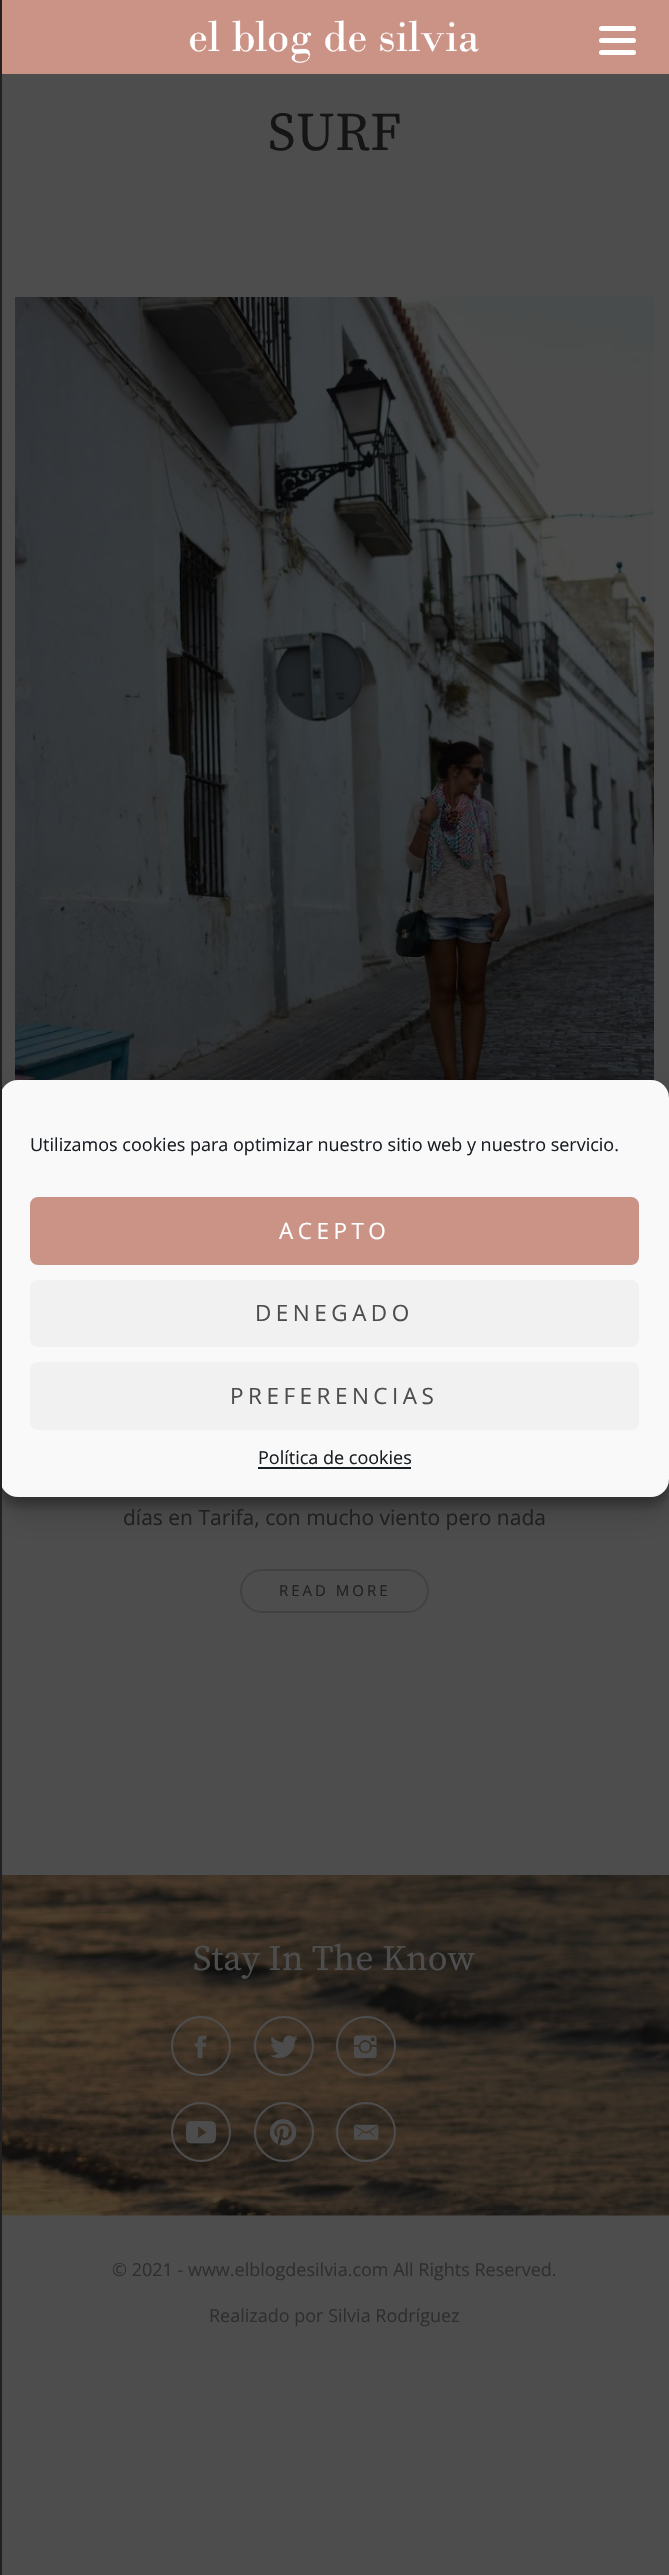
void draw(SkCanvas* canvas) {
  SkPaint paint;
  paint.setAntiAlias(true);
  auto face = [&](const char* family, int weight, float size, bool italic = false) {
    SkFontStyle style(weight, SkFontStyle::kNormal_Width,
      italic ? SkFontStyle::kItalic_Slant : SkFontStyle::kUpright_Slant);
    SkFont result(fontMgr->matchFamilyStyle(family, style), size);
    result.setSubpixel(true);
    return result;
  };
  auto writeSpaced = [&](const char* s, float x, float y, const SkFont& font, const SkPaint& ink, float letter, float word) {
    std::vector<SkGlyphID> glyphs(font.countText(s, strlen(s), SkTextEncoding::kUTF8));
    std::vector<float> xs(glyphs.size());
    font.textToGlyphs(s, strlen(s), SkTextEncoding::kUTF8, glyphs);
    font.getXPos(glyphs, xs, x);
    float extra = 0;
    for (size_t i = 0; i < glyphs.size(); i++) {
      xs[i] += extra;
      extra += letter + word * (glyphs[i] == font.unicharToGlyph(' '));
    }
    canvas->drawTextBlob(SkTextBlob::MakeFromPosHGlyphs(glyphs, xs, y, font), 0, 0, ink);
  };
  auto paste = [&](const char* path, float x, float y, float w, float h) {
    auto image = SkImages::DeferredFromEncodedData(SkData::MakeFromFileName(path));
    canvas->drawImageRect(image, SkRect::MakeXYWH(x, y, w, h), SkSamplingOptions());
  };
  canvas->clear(0xff4d4d4d);
  paste("img/2.png", 15, 297, 639, 784);
  paint.setColor(0x3b000000);
  paint.setMaskFilter(SkMaskFilter::MakeBlur(kNormal_SkBlurStyle, 4.5f));
  canvas->drawRoundRect(SkRect::MakeXYWH(0, 1089, 669, 417), 18, 18, paint);
  paint.setMaskFilter(nullptr);
  paint.setColor(0x30000000);
  paint.setMaskFilter(SkMaskFilter::MakeBlur(kNormal_SkBlurStyle, 15));
  canvas->drawRoundRect(SkRect::MakeXYWH(0, 1095, 669, 417), 18, 18, paint);
  paint.setMaskFilter(nullptr);
  paint.setColor(0xfff9f9f9);
  canvas->drawRoundRect(SkRect::MakeXYWH(0, 1080, 669, 417), 18, 18, paint);
  paint.setColor(0xff212121);
  canvas->drawRect(SkRect::MakeXYWH(0, 0, 2, 2575), paint);
  paint.setColor(0xffcb9286);
  canvas->drawRect(SkRect::MakeXYWH(2, 0, 667, 74), paint);
  paint.setColor(0xffffffff);
  canvas->drawRoundRect(SkRect::MakeXYWH(599, 38, 37, 5), 2.5f, 2.5f, paint);
  canvas->drawRoundRect(SkRect::MakeXYWH(599, 26, 37, 5), 2.5f, 2.5f, paint);
  canvas->drawRoundRect(SkRect::MakeXYWH(599, 50, 37, 5), 2.5f, 2.5f, paint);
  paste("img/1.png", 189, 20, 290, 43);
  paint.setStroke(true);
  paint.setStrokeWidth(2);
  paint.setColor(0xff414141);
  canvas->drawRoundRect(SkRect::MakeXYWH(241, 1570, 187, 42), 21, 21, paint);
  paint.setStroke(false);
  paint.setColor(0xffcb9286);
  canvas->drawRoundRect(SkRect::MakeXYWH(31, 1198, 607, 66), 7, 7, paint);
  paint.setStroke(true);
  canvas->drawRoundRect(SkRect::MakeXYWH(31, 1198, 607, 66), 7, 7, paint);
  paint.setStroke(false);
  paint.setColor(0xfff1f1f1);
  canvas->drawRoundRect(SkRect::MakeXYWH(30, 1280, 609, 67), 8, 8, paint);
  canvas->drawRoundRect(SkRect::MakeXYWH(30, 1362, 609, 68), 8, 8, paint);
  paint.setColor(0xff191e23);
  canvas->drawRect(SkRect::MakeXYWH(258, 1467, 153, 2), paint);
  paste("img/3.png", 2, 1875, 667, 341);
  paint.setStroke(true);
  paint.setColor(0xff4d4d4d);
  canvas->drawCircle(201, 2046, 29, paint);
  paste("img/4.png", 195, 2035, 12, 23);
  canvas->drawCircle(284, 2046, 29, paint);
  paste("img/5.png", 270, 2035, 28, 23);
  canvas->drawCircle(366, 2046, 29, paint);
  paste("img/6.png", 354, 2035, 23, 23);
  canvas->drawCircle(201, 2132, 29, paint);
  paste("img/7.png", 186, 2121, 30, 23);
  canvas->drawCircle(284, 2132, 29, paint);
  paste("img/8.png", 270, 2119, 27, 27);
  canvas->drawCircle(366, 2132, 29, paint);
  paste("img/9.png", 354, 2124, 25, 16);
  auto f0 = face("Source Serif Pro", 400, 54);
  paint.setStroke(false);
  paint.setColor(0xff151515);
  canvas->drawString("SURF", 268, 150, f0, paint);
  auto f1 = face("Open Sans", 400, 21);
  paint.setColor(0xff1f1f1f);
  canvas->drawString("días en Tarifa, con mucho viento pero nada", 123, 1525, f1, paint);
  auto f2 = face("Open Sans", 400, 15);
  writeSpaced("READ MORE", 279, 1596, f2, paint, 3, 0);
  auto f3 = face("Open Sans", 400, 18);
  paint.setColor(0xff191e23);
  canvas->drawString("Utilizamos cookies para optimizar nuestro sitio web y nuestro servicio.", 30, 1151, f3, paint);
  auto f4 = face("Open Sans", 400, 22.5f);
  paint.setColor(0xffffffff);
  writeSpaced("ACEPTO", 279, 1239, f4, paint, 4.5f, 0);
  paint.setColor(0xff4d4d4d);
  writeSpaced("DENEGADO", 255, 1321, f4, paint, 4.5f, 0);
  writeSpaced("PREFERENCIAS", 230, 1404, f4, paint, 4.5f, 0);
  paint.setColor(0xff191e23);
  canvas->drawString("Política de cookies", 258, 1464, f3, paint);
  auto f5 = face("Source Serif Pro", 400, 36);
  paint.setColor(0xff4d4d4d);
  canvas->drawString("Stay In The Know", 193, 1970, f5, paint);
  paint.setColor(0xff2e2e2e);
  canvas->drawString("© 2021 - www.elblogdesilvia.com All Rights Reserved.", 112, 2276, f3, paint);
  canvas->drawString("Realizado por Silvia Rodríguez", 209, 2322, f3, paint);
}
